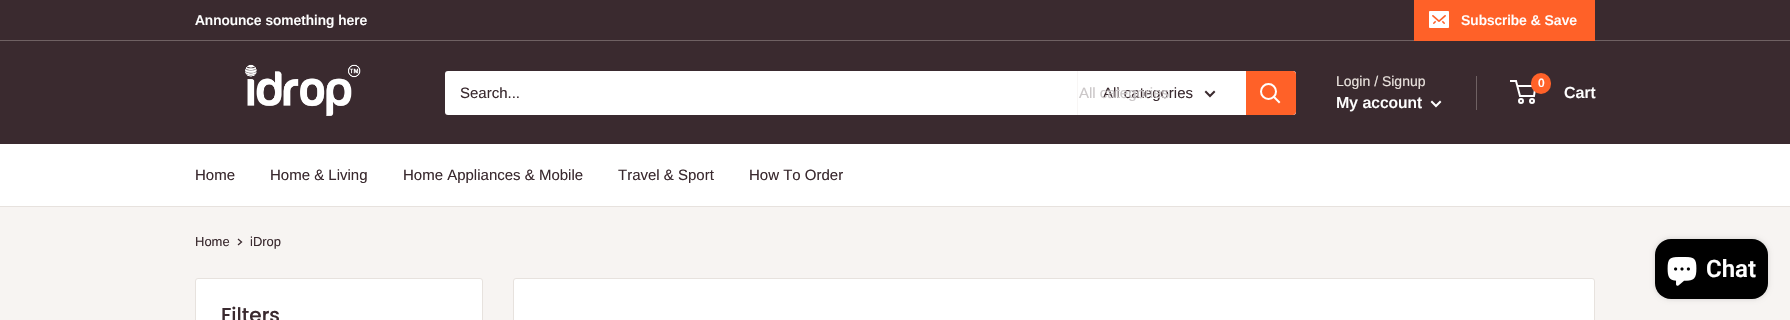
void draw(SkCanvas* canvas) {
  SkPaint paint;
  paint.setAntiAlias(true);
  auto face = [&](const char* family, int weight, float size, bool italic = false) {
    SkFontStyle style(weight, SkFontStyle::kNormal_Width,
      italic ? SkFontStyle::kItalic_Slant : SkFontStyle::kUpright_Slant);
    SkFont result(fontMgr->matchFamilyStyle(family, style), size);
    result.setSubpixel(true);
    return result;
  };
  auto paste = [&](const char* path, float x, float y, float w, float h) {
    auto image = SkImages::DeferredFromEncodedData(SkData::MakeFromFileName(path));
    canvas->drawImageRect(image, SkRect::MakeXYWH(x, y, w, h), SkSamplingOptions());
  };
  auto shape = [&](const char* data, bool evenOdd = false) {
    SkPath result = *SkParsePath::FromSVGString(data);
    if (evenOdd) result.setFillType(SkPathFillType::kEvenOdd);
    return result;
  };
  canvas->clear(0xfff7f4f2);
  {
    const struct { float x, y, w, h; SkColor color; } items[] = {
      {0, 0, 1790, 40, 0xff3a2a2f},
      {0, 40, 1790, 1, 0xff6f6163},
      {1414, 0, 181, 41, 0xffff6128},
    };
    for (auto [x, y, w, h, color] : items) {
      paint.setColor(color);
      canvas->drawRect(SkRect::MakeXYWH(x, y, w, h), paint);
    }
  }
  paste("img/1.png", 1429, 11, 20, 17);
  paint.setColor(0xff3a2a2f);
  canvas->drawRect(SkRect::MakeXYWH(0, 41, 1790, 103), paint);
  paste("img/2.png", 245, 64, 116, 52);
  paint.setColor(0xffffffff);
  canvas->drawRoundRect(SkRect::MakeXYWH(445, 71, 851, 44), 3, 3, paint);
  paint.setColor(0xfff8f6f5);
  canvas->drawRect(SkRect::MakeXYWH(1077, 71, 1, 44), paint);
  paint.setStroke(true);
  paint.setStrokeWidth(2);
  paint.setStrokeCap(SkPaint::kSquare_Cap);
  paint.setColor(0xff3a2a2f);
  canvas->drawPath(shape("M1214 92L1210 96L1206 92"), paint);
  paint.setStroke(false);
  paint.setColor(0xffff6128);
  canvas->drawPath(shape("M1246 71H1293C1294.5 71 1296 72.5 1296 74V112C1296 113.5 1294.5 115 1293 115H1246Z"), paint);
  paint.setStroke(true);
  paint.setColor(0xffffffff);
  canvas->drawPath(shape("M1279 102L1274 97"), paint);
  paint.setStrokeCap(SkPaint::kButt_Cap);
  canvas->drawCircle(1268.5f, 91.5f, 7.5f, paint);
  paint.setStroke(false);
  paint.setColor(0xff6f6163);
  canvas->drawRect(SkRect::MakeXYWH(1476, 76, 1, 34), paint);
  paint.setStroke(true);
  paint.setStrokeCap(SkPaint::kSquare_Cap);
  paint.setColor(0xffffffff);
  canvas->drawPath(shape("M1440 102L1436 106L1432 102"), paint);
  paint.setStrokeCap(SkPaint::kButt_Cap);
  canvas->drawCircle(1521, 101, 2, paint);
  canvas->drawCircle(1532, 101, 2, paint);
  canvas->drawPath(shape("M1517.5 86H1535.5L1534 96H1520L1516 81H1510"), paint);
  paint.setStroke(false);
  paint.setColor(0xffff6128);
  canvas->drawRoundRect(SkRect::MakeXYWH(1531, 73, 20, 21), 10, 10, paint);
  paint.setColor(0xffffffff);
  canvas->drawRect(SkRect::MakeXYWH(0, 144, 1790, 62), paint);
  paint.setColor(0xffe7e2de);
  canvas->drawRect(SkRect::MakeXYWH(0, 206, 1790, 1), paint);
  paint.setStroke(true);
  paint.setStrokeWidth(1.3f);
  paint.setStrokeCap(SkPaint::kSquare_Cap);
  paint.setColor(0xff3a2a2f);
  canvas->drawPath(shape("M238.5 239.5L241.5 242L238.5 244.5"), paint);
  paint.setStroke(false);
  paint.setColor(0xffffffff);
  canvas->drawRoundRect(SkRect::MakeXYWH(195.5f, 278.5f, 287, 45), 2.5f, 2.5f, paint);
  paint.setStroke(true);
  paint.setStrokeWidth(1);
  paint.setStrokeCap(SkPaint::kButt_Cap);
  paint.setColor(0xffe7e2de);
  canvas->drawRoundRect(SkRect::MakeXYWH(195.5f, 278.5f, 287, 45), 2.5f, 2.5f, paint);
  paint.setStroke(false);
  paint.setColor(0xffffffff);
  canvas->drawRoundRect(SkRect::MakeXYWH(513.5f, 278.5f, 1081, 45), 2.5f, 2.5f, paint);
  paint.setStroke(true);
  paint.setColor(0xffe7e2de);
  canvas->drawRoundRect(SkRect::MakeXYWH(513.5f, 278.5f, 1081, 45), 2.5f, 2.5f, paint);
  paint.setStroke(false);
  paint.setColor(0x26000000);
  paint.setMaskFilter(SkMaskFilter::MakeBlur(kNormal_SkBlurStyle, 2.5f));
  canvas->drawRoundRect(SkRect::MakeXYWH(1655, 239, 113, 60), 16, 16, paint);
  paint.setMaskFilter(nullptr);
  paint.setColor(0xff000000);
  canvas->drawRoundRect(SkRect::MakeXYWH(1655, 239, 113, 60), 16, 16, paint);
  paste("img/3.png", 1667, 257, 30, 29);
  auto f0 = face("Arimo", 600, 14);
  paint.setColor(0xffffffff);
  canvas->drawString("Announce something here", 195, 25, f0, paint);
  canvas->drawString("Subscribe & Save", 1461, 25, f0, paint);
  auto f1 = face("Arimo", 400, 15);
  paint.setColor(0xff3a2a2f);
  canvas->drawString("Search...", 460, 98, f1, paint);
  canvas->drawString("All categories", 1103, 98, f1, paint);
  paint.setColor(0xffcbc7c8);
  canvas->drawString("All categories", 1079, 98, f1, paint);
  auto f2 = face("Arimo", 400, 14);
  paint.setColor(0xffe9e2dd);
  canvas->drawString("Login / Signup", 1336, 86, f2, paint);
  auto f3 = face("Arimo", 600, 16);
  paint.setColor(0xffffffff);
  canvas->drawString("My account", 1336, 108, f3, paint);
  auto f4 = face("Arimo", 600, 12);
  canvas->drawString("0", 1538, 87, f4, paint);
  canvas->drawString("Cart", 1564, 98, f3, paint);
  paint.setColor(0xff3a2a2f);
  {
    const struct { const char* s; float x, y; } items[] = {
      {"Home", 195, 180},
      {"Home & Living", 270, 180},
      {"Home Appliances & Mobile", 403, 180},
      {"Travel & Sport", 618, 180},
      {"How To Order", 749, 180},
    };
    for (auto [s, x, y] : items) {
      canvas->drawString(s, x, y, f1, paint);
    }
  }
  auto f5 = face("Arimo", 400, 13);
  canvas->drawString("Home", 195, 246, f5, paint);
  canvas->drawString("iDrop", 250, 246, f5, paint);
  auto f6 = face("Poppins", 500, 20);
  canvas->drawString("Filters", 221, 322, f6, paint);
  auto f7 = face("Roboto", 600, 24);
  paint.setColor(0xffffffff);
  canvas->drawString("Chat", 1706, 277, f7, paint);
}
